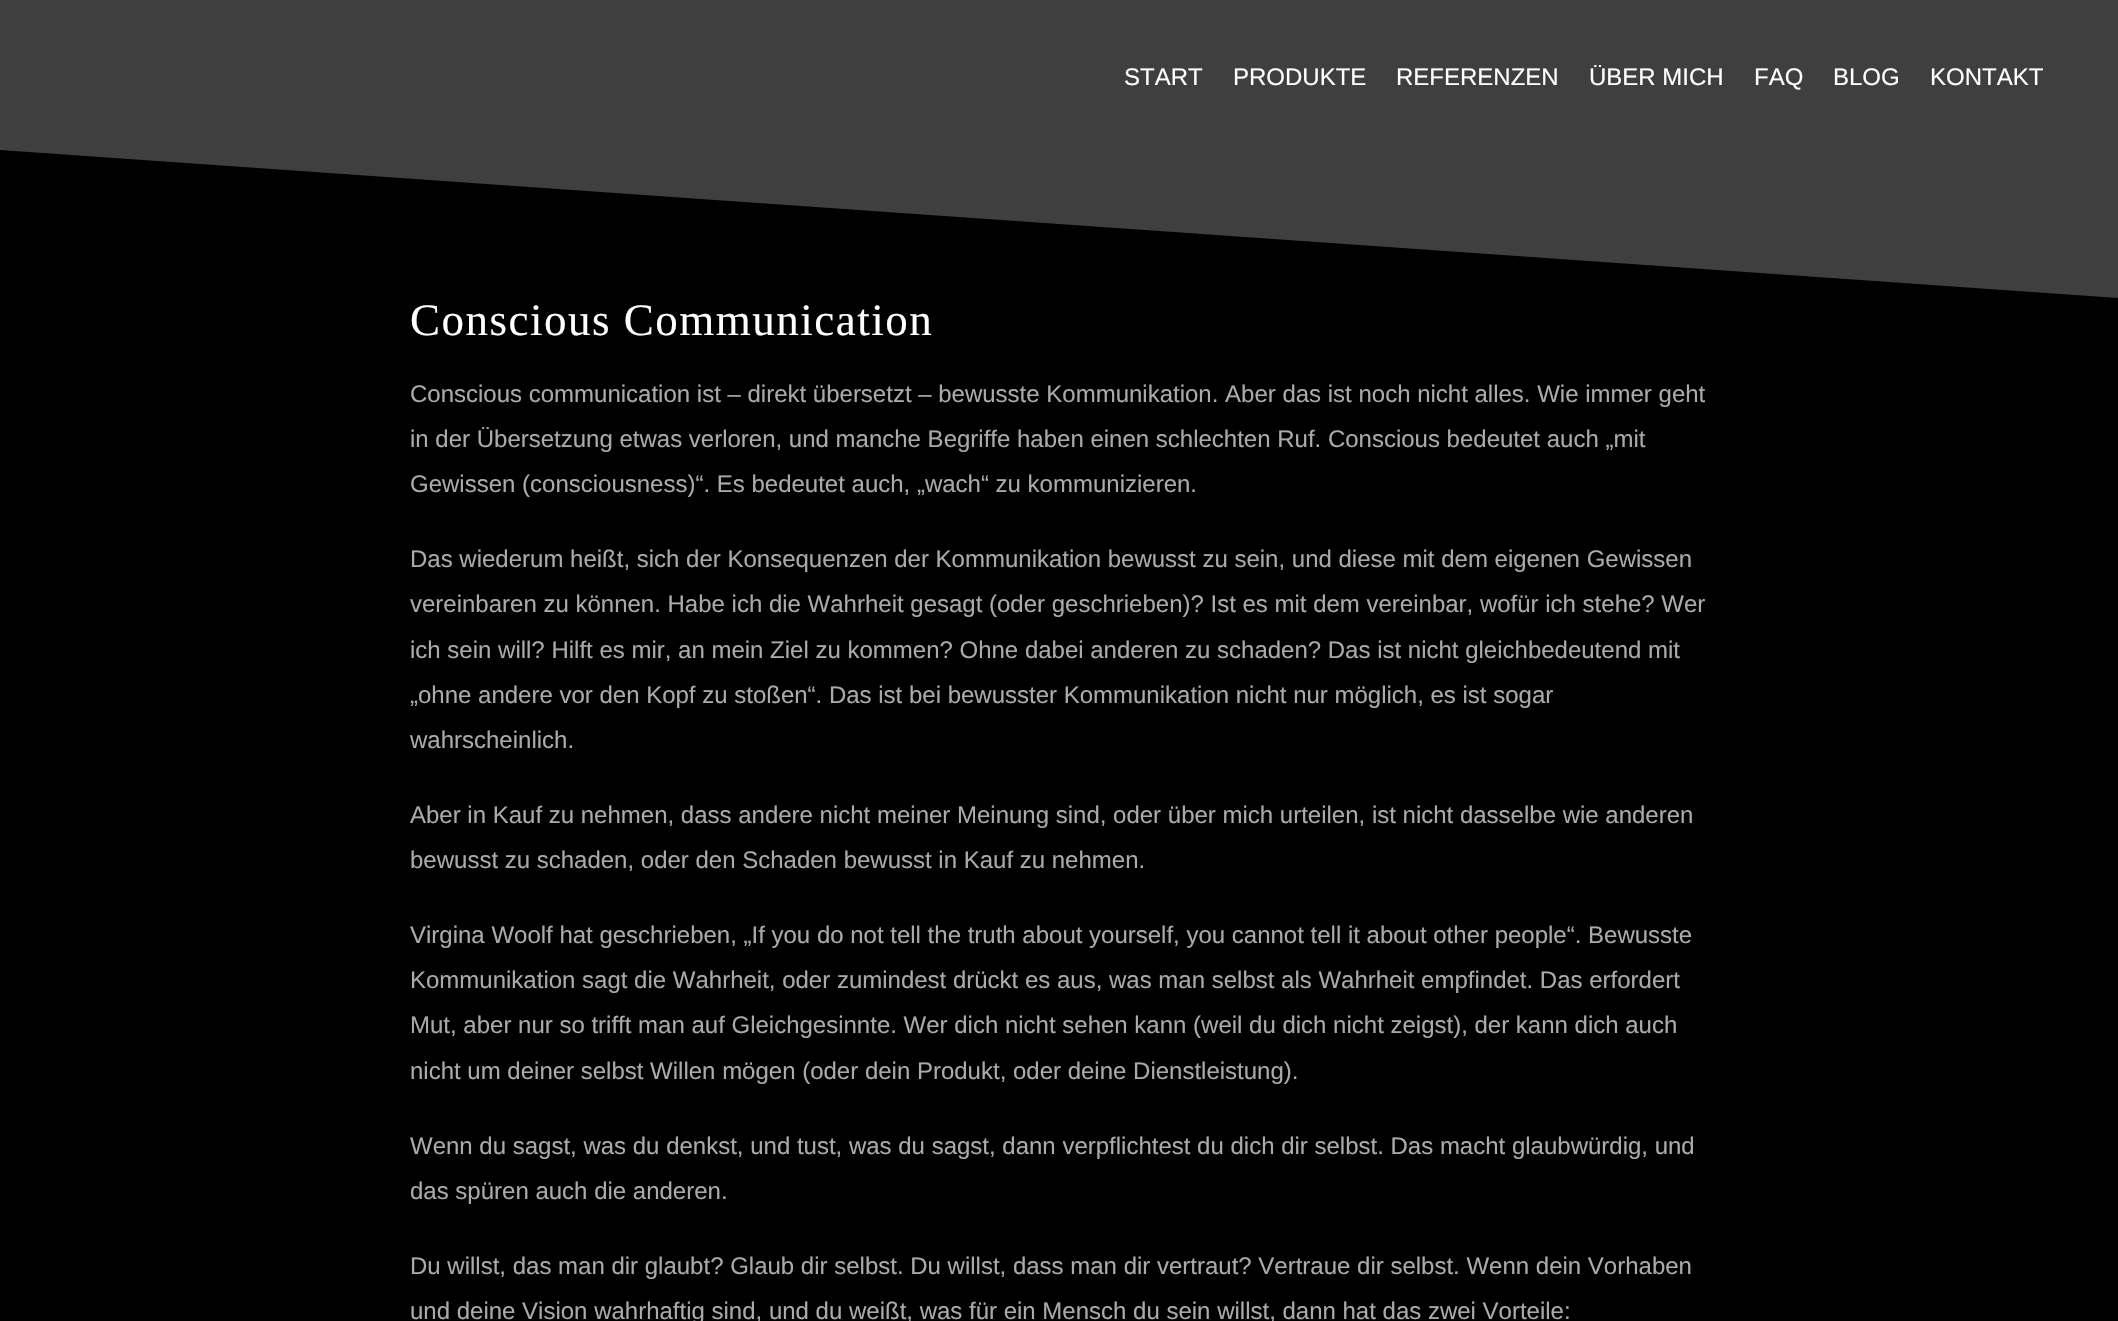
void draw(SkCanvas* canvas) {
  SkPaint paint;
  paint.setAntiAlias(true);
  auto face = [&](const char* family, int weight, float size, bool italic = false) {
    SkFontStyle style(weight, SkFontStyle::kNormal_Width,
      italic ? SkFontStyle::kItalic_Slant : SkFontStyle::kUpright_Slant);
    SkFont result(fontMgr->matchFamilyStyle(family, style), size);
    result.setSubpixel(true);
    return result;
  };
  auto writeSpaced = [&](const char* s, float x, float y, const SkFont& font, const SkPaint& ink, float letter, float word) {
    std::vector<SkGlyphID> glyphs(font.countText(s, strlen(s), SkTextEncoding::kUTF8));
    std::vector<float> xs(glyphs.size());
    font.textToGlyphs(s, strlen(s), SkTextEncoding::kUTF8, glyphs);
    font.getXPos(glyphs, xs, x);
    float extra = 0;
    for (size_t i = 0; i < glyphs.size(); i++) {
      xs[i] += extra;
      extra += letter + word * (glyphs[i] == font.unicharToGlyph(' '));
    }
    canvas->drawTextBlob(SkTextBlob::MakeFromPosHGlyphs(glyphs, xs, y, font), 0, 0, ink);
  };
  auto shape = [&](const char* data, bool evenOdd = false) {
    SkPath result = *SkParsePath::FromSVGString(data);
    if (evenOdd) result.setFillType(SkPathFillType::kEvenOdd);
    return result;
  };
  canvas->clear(0xff3f3f3f);
  paint.setColor(0xff000000);
  canvas->drawRect(SkRect::MakeXYWH(0, 150, 2118, 1171), paint);
  paint.setColor(0xff3f3f3f);
  canvas->drawPath(shape("M2118 150V298L0 150Z"), paint);
  auto f0 = face("Liberation Sans", 400, 24);
  paint.setColor(0xffffffff);
  {
    const struct { const char* s; float x, y; } items[] = {
      {"START", 1124, 85},
      {"PRODUKTE", 1233, 85},
      {"REFERENZEN", 1396, 85},
      {"ÜBER MICH", 1589, 85},
      {"FAQ", 1754, 85},
      {"BLOG", 1833, 85},
      {"KONTAKT", 1930, 85},
    };
    for (auto [s, x, y] : items) {
      canvas->drawString(s, x, y, f0, paint);
    }
  }
  auto f1 = face("Liberation Serif", 400, 45);
  writeSpaced("Conscious Communication", 410, 335, f1, paint, 1.5f, 0);
  paint.setColor(0xffaaaaaa);
  {
    const struct { const char* s; float x, y; } items[] = {
      {"Conscious communication ist – direkt übersetzt – bewusste Kommunikation. Aber das ist noch nicht alles. Wie immer geht", 410, 402},
      {"in der Übersetzung etwas verloren, und manche Begriffe haben einen schlechten Ruf. Conscious bedeutet auch „mit", 410, 447},
      {"Gewissen (consciousness)“. Es bedeutet auch, „wach“ zu kommunizieren.", 410, 492},
      {"Das wiederum heißt, sich der Konsequenzen der Kommunikation bewusst zu sein, und diese mit dem eigenen Gewissen", 410, 567},
      {"vereinbaren zu können. Habe ich die Wahrheit gesagt (oder geschrieben)? Ist es mit dem vereinbar, wofür ich stehe? Wer", 410, 612},
      {"ich sein will? Hilft es mir, an mein Ziel zu kommen? Ohne dabei anderen zu schaden? Das ist nicht gleichbedeutend mit", 410, 658},
      {"„ohne andere vor den Kopf zu stoßen“. Das ist bei bewusster Kommunikation nicht nur möglich, es ist sogar", 410, 703},
      {"wahrscheinlich.", 410, 748},
      {"Aber in Kauf zu nehmen, dass andere nicht meiner Meinung sind, oder über mich urteilen, ist nicht dasselbe wie anderen", 410, 823},
      {"bewusst zu schaden, oder den Schaden bewusst in Kauf zu nehmen.", 410, 868},
      {"Virgina Woolf hat geschrieben, „If you do not tell the truth about yourself, you cannot tell it about other people“. Bewusste", 410, 943},
      {"Kommunikation sagt die Wahrheit, oder zumindest drückt es aus, was man selbst als Wahrheit empfindet. Das erfordert", 410, 988},
      {"Mut, aber nur so trifft man auf Gleichgesinnte. Wer dich nicht sehen kann (weil du dich nicht zeigst), der kann dich auch", 410, 1033},
      {"nicht um deiner selbst Willen mögen (oder dein Produkt, oder deine Dienstleistung).", 410, 1079},
      {"Wenn du sagst, was du denkst, und tust, was du sagst, dann verpflichtest du dich dir selbst. Das macht glaubwürdig, und", 410, 1154},
      {"das spüren auch die anderen.", 410, 1199},
      {"Du willst, das man dir glaubt? Glaub dir selbst. Du willst, dass man dir vertraut? Vertraue dir selbst. Wenn dein Vorhaben", 410, 1274},
      {"und deine Vision wahrhaftig sind, und du weißt, was für ein Mensch du sein willst, dann hat das zwei Vorteile:", 410, 1319},
    };
    for (auto [s, x, y] : items) {
      canvas->drawString(s, x, y, f0, paint);
    }
  }
}
